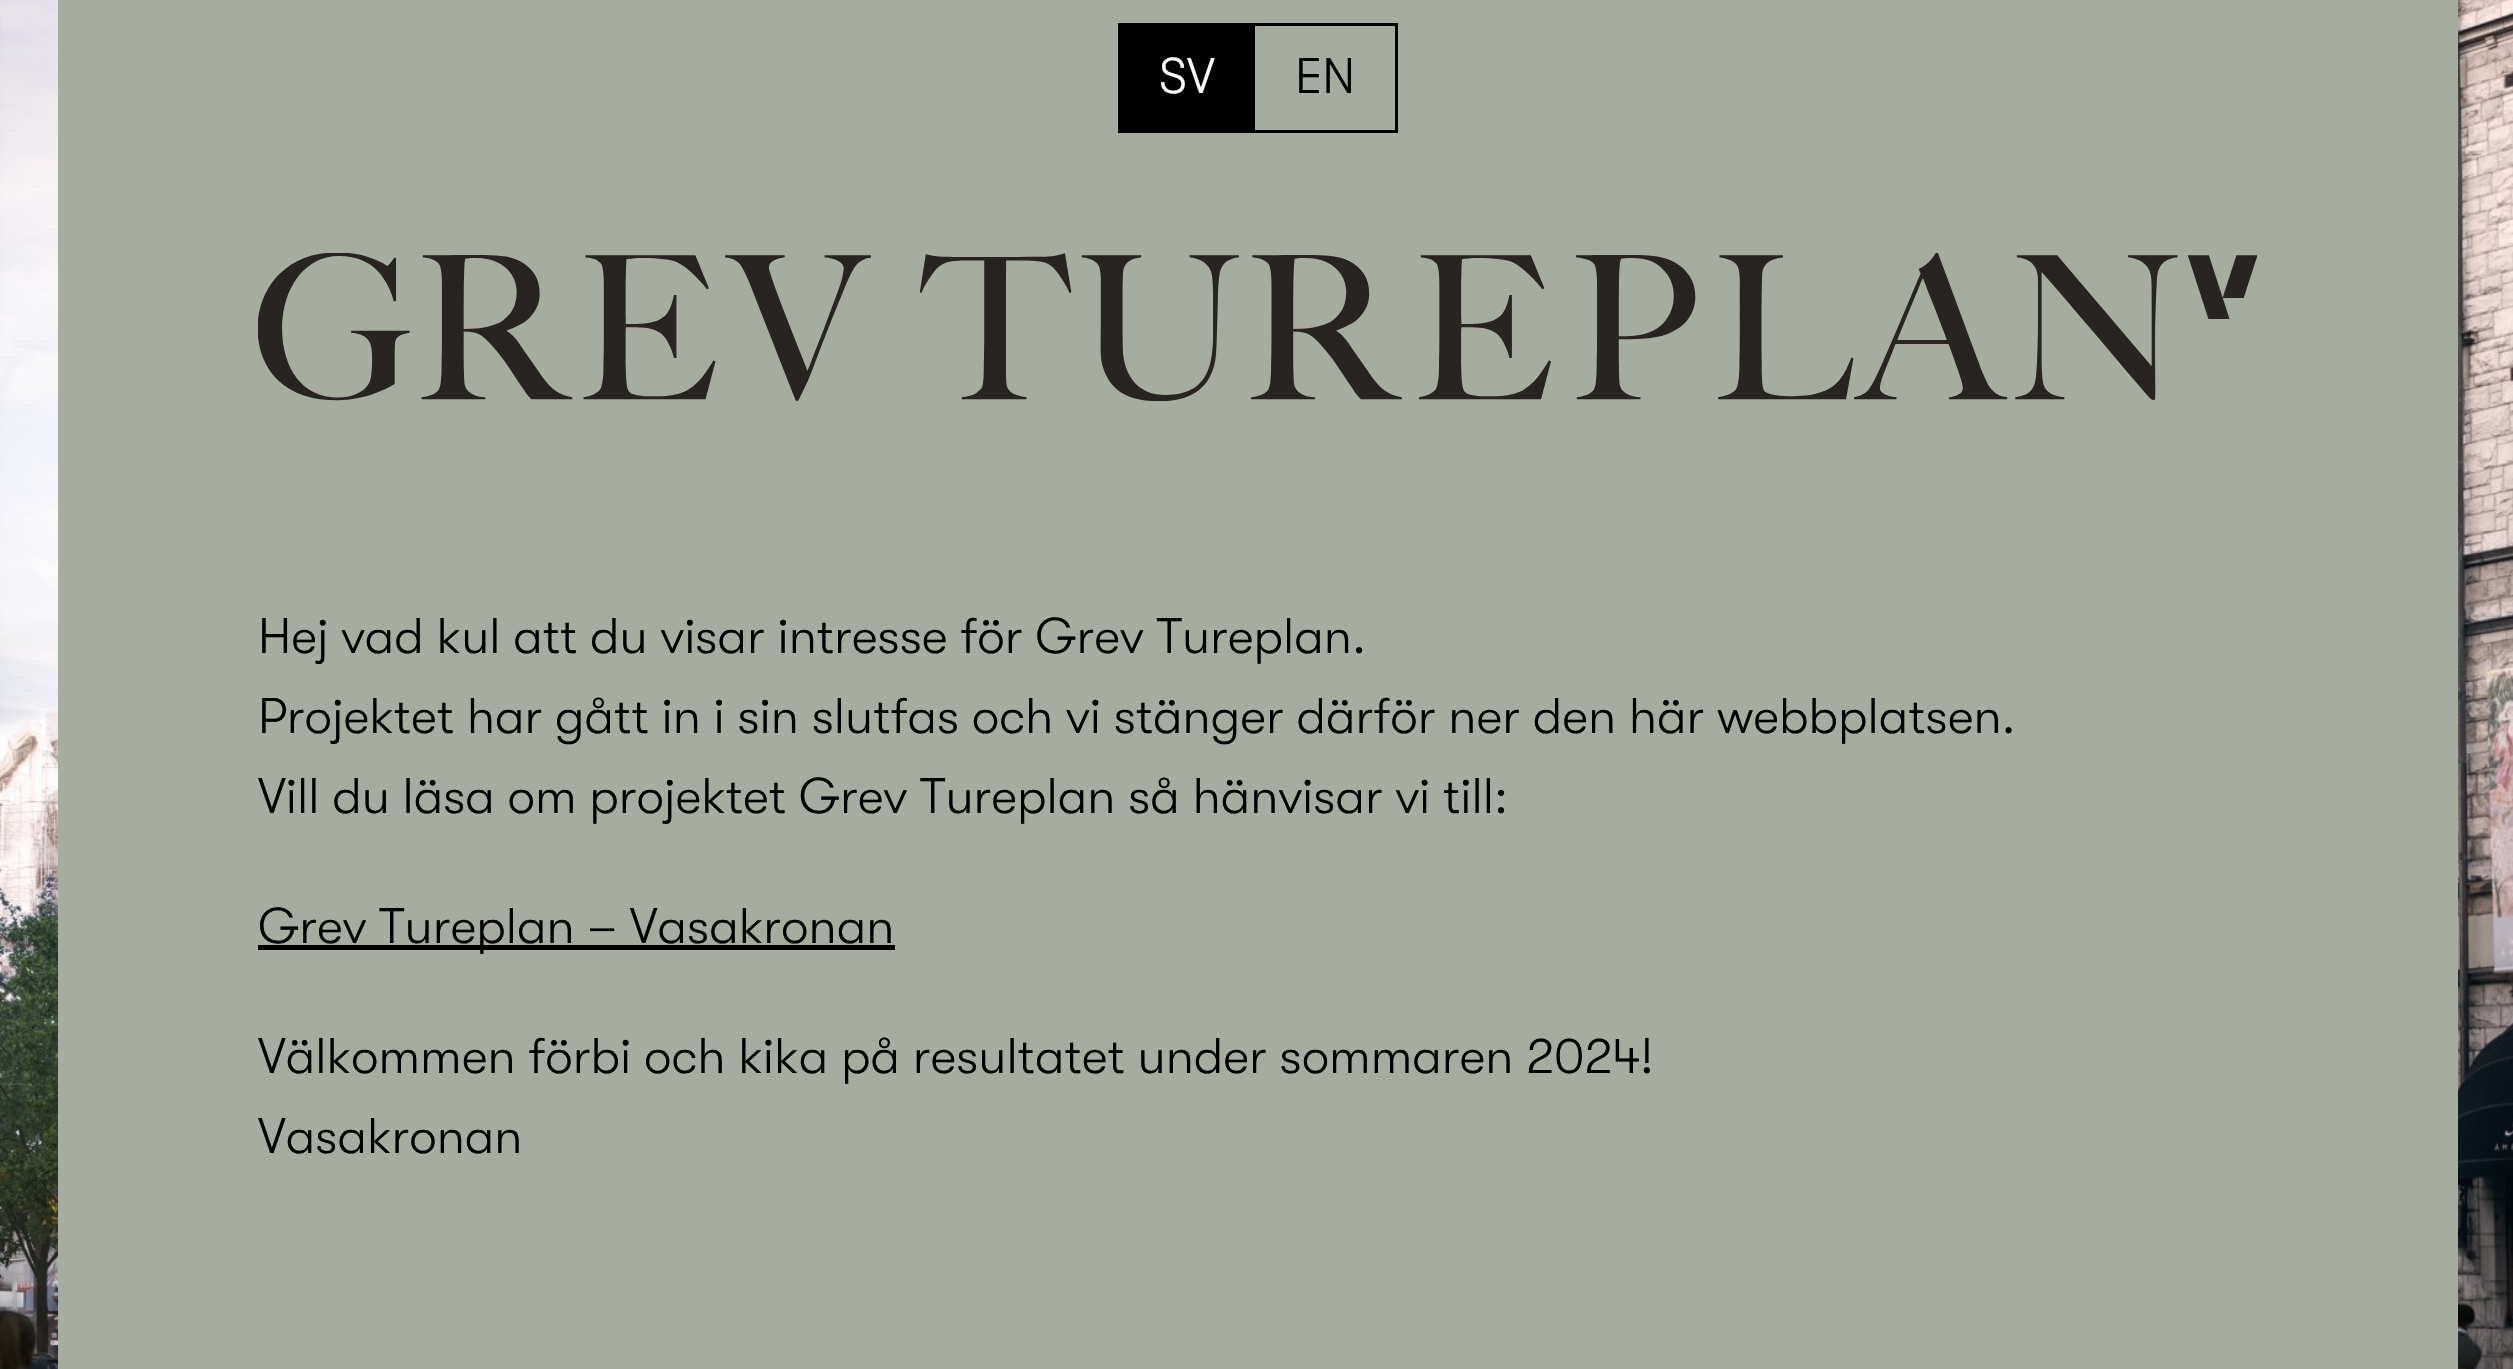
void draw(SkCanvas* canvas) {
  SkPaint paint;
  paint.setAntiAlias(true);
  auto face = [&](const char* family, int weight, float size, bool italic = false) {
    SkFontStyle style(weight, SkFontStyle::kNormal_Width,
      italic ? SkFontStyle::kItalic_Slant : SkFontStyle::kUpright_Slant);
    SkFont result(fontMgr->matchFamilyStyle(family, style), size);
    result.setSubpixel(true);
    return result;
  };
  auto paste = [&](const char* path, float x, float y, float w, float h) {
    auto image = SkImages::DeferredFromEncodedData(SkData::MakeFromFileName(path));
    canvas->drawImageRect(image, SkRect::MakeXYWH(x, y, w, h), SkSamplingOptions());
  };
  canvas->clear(0xffffffff);
  paste("img/1.png", 0, 0, 2513, 1369);
  paint.setColor(0xffa6ac9f);
  canvas->drawRect(SkRect::MakeXYWH(58, 0, 2400, 1369), paint);
  paint.setStroke(true);
  paint.setStrokeWidth(3);
  paint.setColor(0xff000000);
  canvas->drawRect(SkRect::MakeXYWH(1119.5f, 24.5f, 277, 107), paint);
  paint.setStroke(false);
  canvas->drawRect(SkRect::MakeXYWH(1121, 26, 134, 104), paint);
  paste("img/2.png", 258, 253, 2000, 149);
  canvas->drawRect(SkRect::MakeXYWH(258, 945, 637, 5), paint);
  auto f0 = face("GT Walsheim", 300, 50);
  paint.setColor(0xffffffff);
  canvas->drawString("SV", 1159, 93, f0, paint);
  paint.setColor(0xff000000);
  {
    const struct { const char* s; float x, y; } items[] = {
      {"EN", 1295, 93},
      {"Hej vad kul att du visar intresse för Grev Tureplan.", 258, 653},
      {"Projektet har gått in i sin slutfas och vi stänger därför ner den här webbplatsen.", 258, 733},
      {"Vill du läsa om projektet Grev Tureplan så hänvisar vi till:", 258, 813},
      {"Grev Tureplan – Vasakronan", 258, 943},
      {"Välkommen förbi och kika på resultatet under sommaren 2024!", 258, 1073},
      {"Vasakronan", 258, 1153},
    };
    for (auto [s, x, y] : items) {
      canvas->drawString(s, x, y, f0, paint);
    }
  }
}
